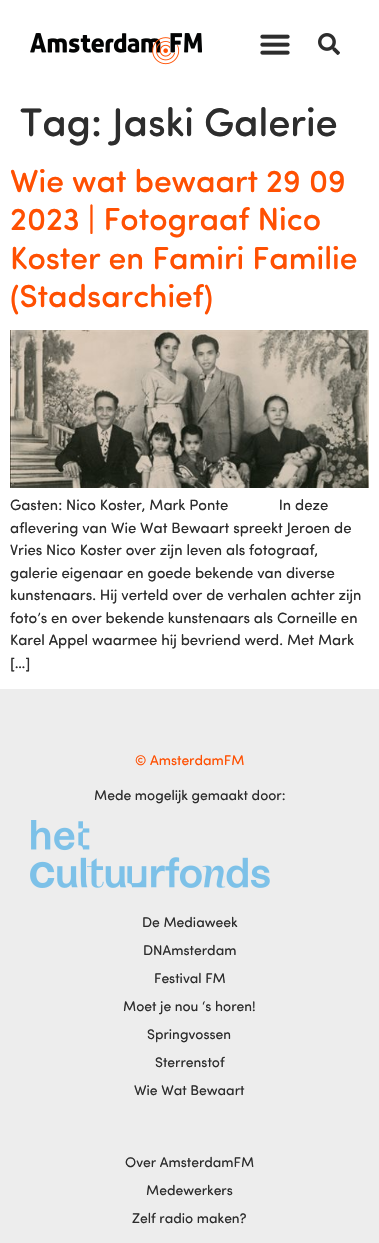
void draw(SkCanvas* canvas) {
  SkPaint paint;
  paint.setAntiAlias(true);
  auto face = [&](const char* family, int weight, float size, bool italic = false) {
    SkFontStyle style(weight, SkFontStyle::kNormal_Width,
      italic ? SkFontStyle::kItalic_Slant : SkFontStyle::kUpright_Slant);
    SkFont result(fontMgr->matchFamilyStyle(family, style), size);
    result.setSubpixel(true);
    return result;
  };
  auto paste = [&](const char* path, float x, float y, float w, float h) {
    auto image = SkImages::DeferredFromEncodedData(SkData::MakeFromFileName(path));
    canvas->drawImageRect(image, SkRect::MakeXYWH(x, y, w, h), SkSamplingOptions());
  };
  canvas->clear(0xffffffff);
  paste("img/1.png", 30, 33, 172, 32);
  paste("img/2.png", 260, 34, 30, 21);
  paste("img/3.png", 318, 33, 22, 22);
  paste("img/4.png", 10, 330, 359, 158);
  paint.setColor(0xffededed);
  canvas->drawRect(SkRect::MakeXYWH(0, 689, 379, 554), paint);
  paste("img/5.png", 30, 820, 240, 68);
  auto f0 = face("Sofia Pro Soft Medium", 500, 40);
  paint.setColor(0xff2d2d2d);
  canvas->drawString("Tag: Jaski Galerie", 20, 136, f0, paint);
  auto f1 = face("Sofia Pro Soft Medium", 500, 32);
  paint.setColor(0xffff5002);
  {
    const struct { const char* s; float x, y; } items[] = {
      {"Wie wat bewaart 29 09", 10, 192},
      {"2023 | Fotograaf Nico", 10, 230},
      {"Koster en Famiri Familie", 10, 269},
      {"(Stadsarchief)", 10, 307},
    };
    for (auto [s, x, y] : items) {
      canvas->drawString(s, x, y, f1, paint);
    }
  }
  auto f2 = face("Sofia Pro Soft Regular", 400, 15);
  paint.setColor(0xff2d2d2d);
  {
    const struct { const char* s; float x, y; } items[] = {
      {"Gasten: Nico Koster, Mark Ponte             In deze", 10, 510},
      {"aflevering van Wie Wat Bewaart spreekt Jeroen de", 10, 533},
      {"Vries Nico Koster over zijn leven als fotograaf,", 10, 555},
      {"galerie eigenaar en goede bekende van diverse", 10, 578},
      {"kunstenaars. Hij verteld over de verhalen achter zijn", 10, 600},
      {"foto’s en over bekende kunstenaars als Corneille en", 10, 623},
      {"Karel Appel waarmee hij bevriend werd. Met Mark", 10, 645},
      {"[…]", 10, 668},
    };
    for (auto [s, x, y] : items) {
      canvas->drawString(s, x, y, f2, paint);
    }
  }
  auto f3 = face("Sofia Pro Soft Regular", 400, 14);
  paint.setColor(0xffff5002);
  canvas->drawString("© AmsterdamFM", 135, 765, f3, paint);
  paint.setColor(0xff2d2d2d);
  {
    const struct { const char* s; float x, y; } items[] = {
      {"Mede mogelijk gemaakt door:", 94, 800},
      {"De Mediaweek", 142, 927},
      {"DNAmsterdam", 143, 955},
      {"Festival FM", 154, 983},
      {"Moet je nou ‘s horen!", 123, 1011},
      {"Springvossen", 147, 1039},
      {"Sterrenstof", 155, 1067},
      {"Wie Wat Bewaart", 134, 1095},
      {"Over AmsterdamFM", 125, 1167},
      {"Medewerkers", 146, 1195},
      {"Zelf radio maken?", 132, 1223},
    };
    for (auto [s, x, y] : items) {
      canvas->drawString(s, x, y, f3, paint);
    }
  }
}
